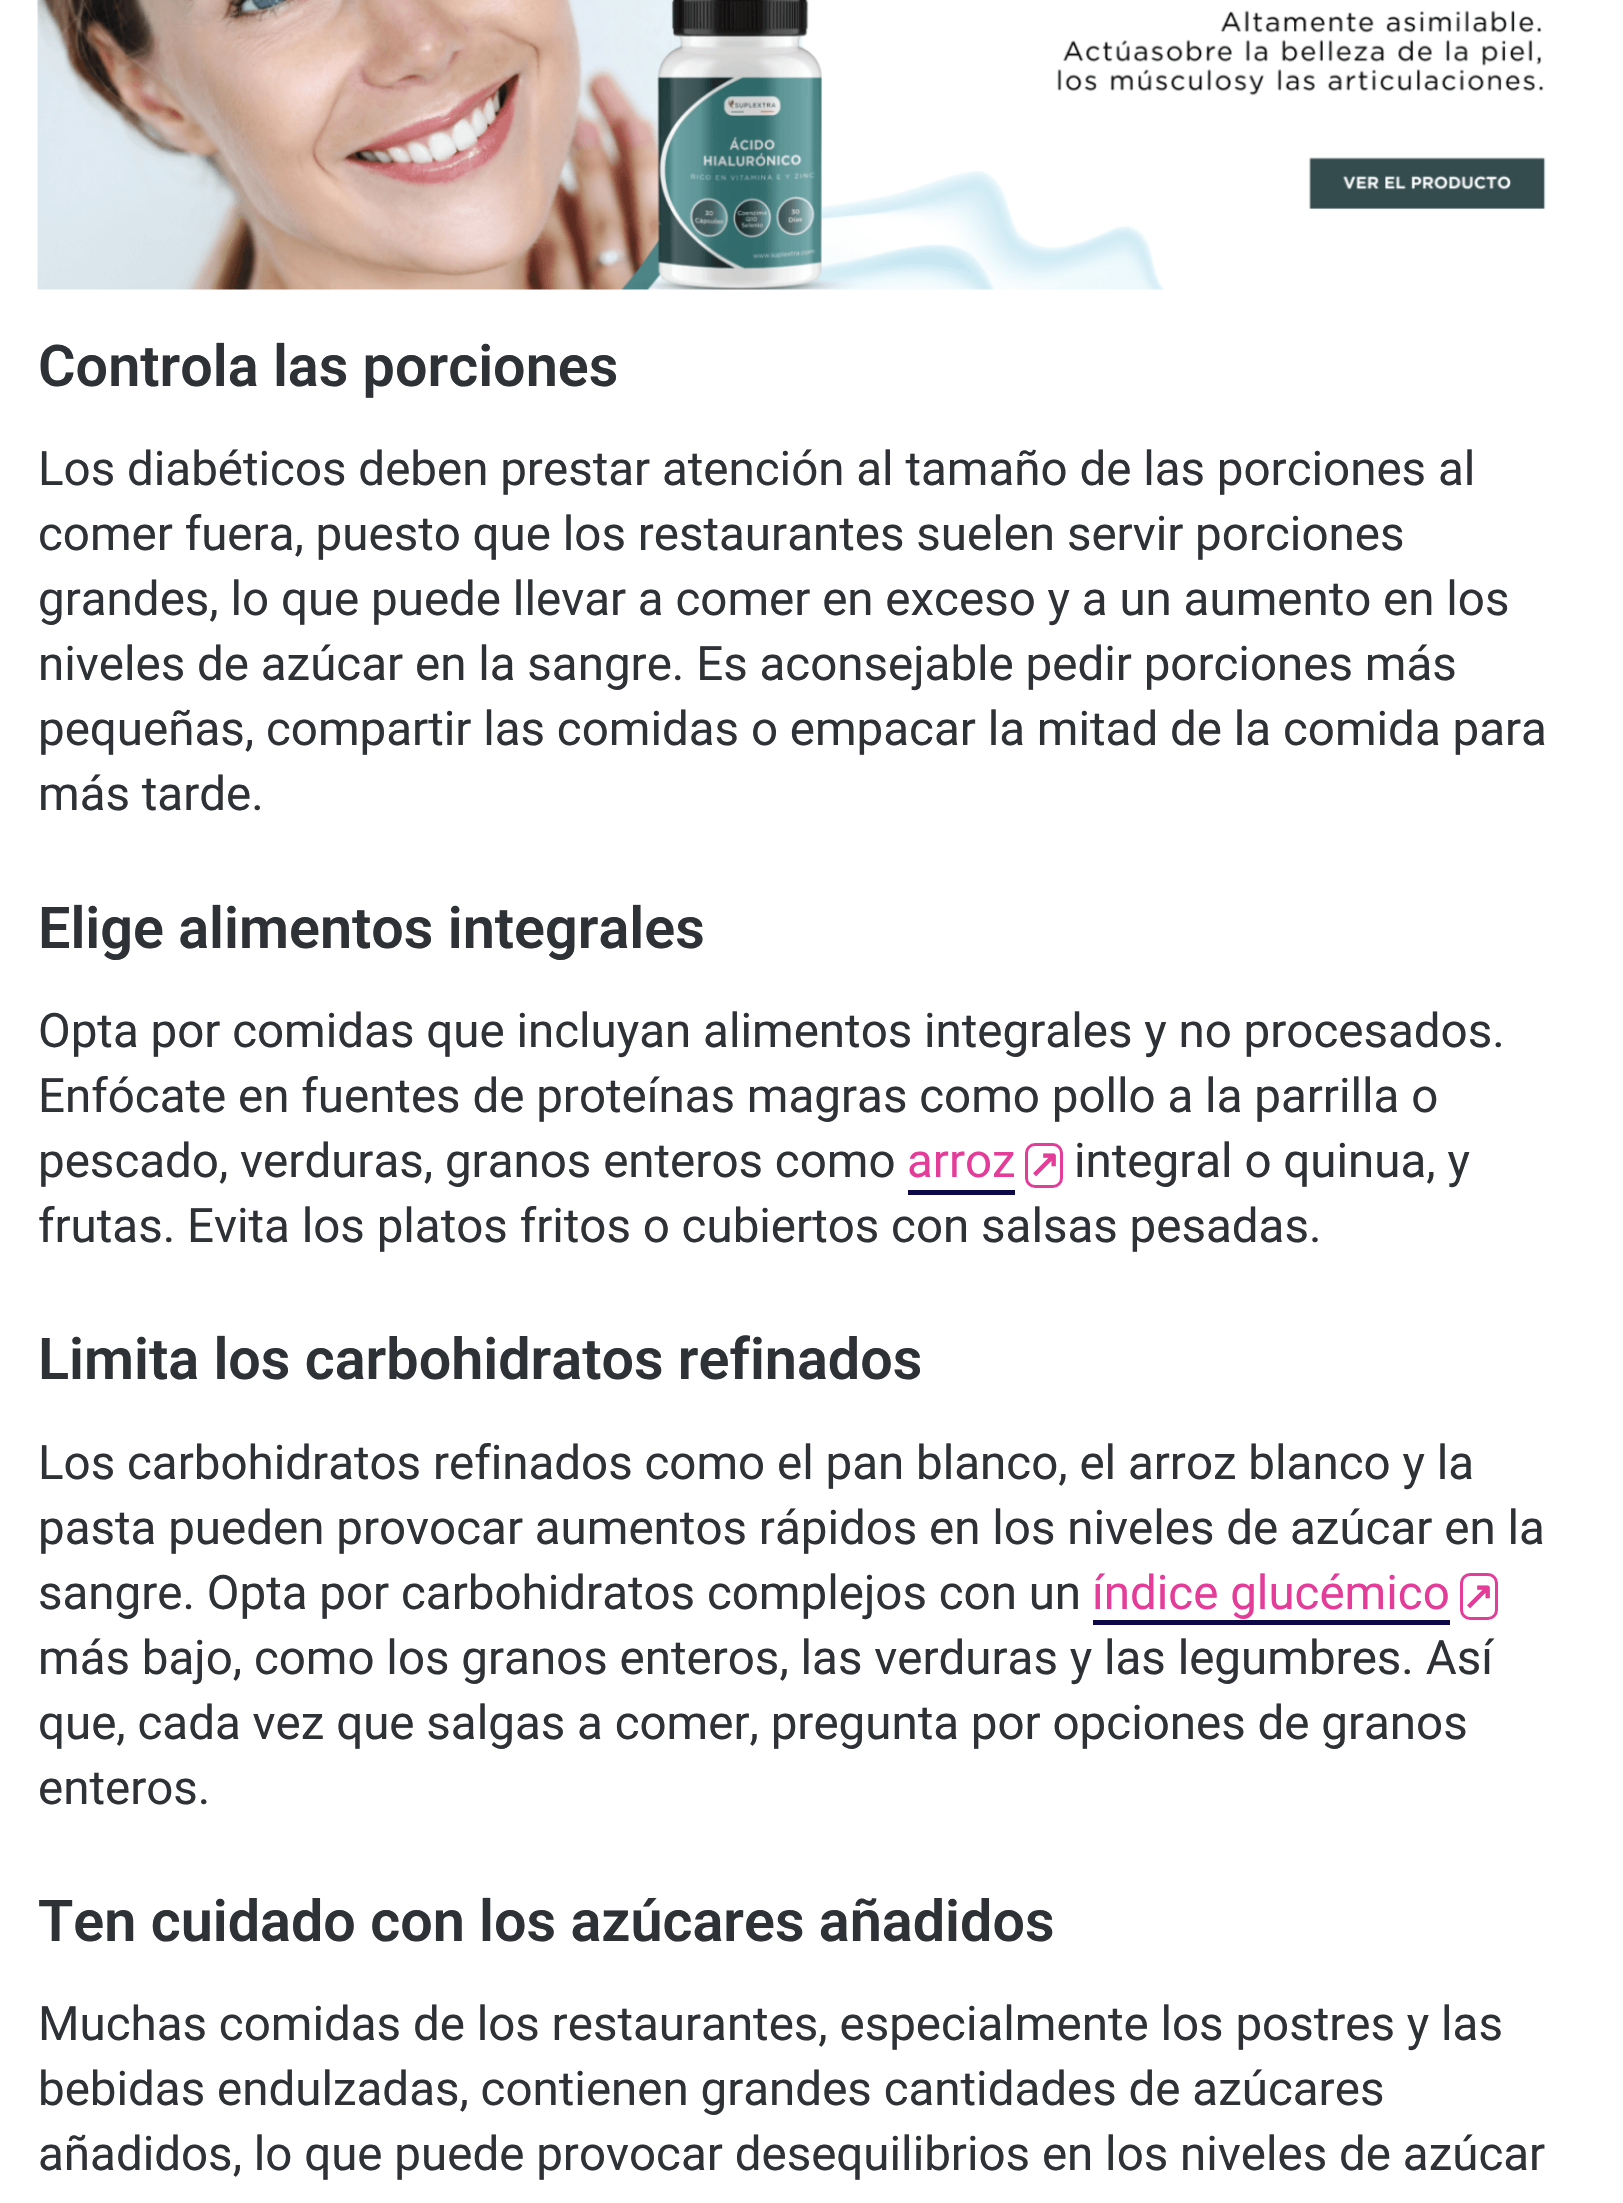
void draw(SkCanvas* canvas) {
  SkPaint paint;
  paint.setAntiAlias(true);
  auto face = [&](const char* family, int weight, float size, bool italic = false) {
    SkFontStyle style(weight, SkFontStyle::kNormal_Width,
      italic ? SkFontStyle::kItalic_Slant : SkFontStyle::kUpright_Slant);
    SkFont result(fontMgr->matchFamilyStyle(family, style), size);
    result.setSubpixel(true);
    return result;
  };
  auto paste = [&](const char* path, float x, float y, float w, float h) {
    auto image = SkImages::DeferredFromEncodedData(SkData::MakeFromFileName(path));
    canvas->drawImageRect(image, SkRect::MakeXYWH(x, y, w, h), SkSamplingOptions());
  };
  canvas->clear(0xffffffff);
  paste("img/1.png", 37, 0, 1509, 290);
  paint.setColor(0xff0d0947);
  canvas->drawRect(SkRect::MakeXYWH(908, 1190, 107, 5), paint);
  paint.setStroke(true);
  paint.setStrokeWidth(3);
  paint.setColor(0xffe33c99);
  canvas->drawRoundRect(SkRect::MakeXYWH(1026.5f, 1144.5f, 35, 42), 8.5f, 8.5f, paint);
  paint.setStroke(false);
  paint.setColor(0xff0d0947);
  canvas->drawRect(SkRect::MakeXYWH(1093, 1620, 357, 5), paint);
  paint.setStroke(true);
  paint.setColor(0xffe33c99);
  canvas->drawRoundRect(SkRect::MakeXYWH(1461.5f, 1574.5f, 35, 44), 8.5f, 8.5f, paint);
  auto f0 = face("Roboto", 600, 57.5f);
  paint.setStroke(false);
  paint.setColor(0xff2e3136);
  canvas->drawString("Controla las porciones", 38, 386, f0, paint);
  auto f1 = face("Roboto", 400, 47.5f);
  {
    const struct { const char* s; float x, y; } items[] = {
      {"Los diabéticos deben prestar atención al tamaño de las porciones al", 38, 485},
      {"comer fuera, puesto que los restaurantes suelen servir porciones", 38, 550},
      {"grandes, lo que puede llevar a comer en exceso y a un aumento en los", 38, 615},
      {"niveles de azúcar en la sangre. Es aconsejable pedir porciones más", 38, 680},
      {"pequeñas, compartir las comidas o empacar la mitad de la comida para", 38, 745},
      {"más tarde.", 38, 810},
    };
    for (auto [s, x, y] : items) {
      canvas->drawString(s, x, y, f1, paint);
    }
  }
  canvas->drawString("Elige alimentos integrales", 38, 948, f0, paint);
  {
    const struct { const char* s; float x, y; } items[] = {
      {"Opta por comidas que incluyan alimentos integrales y no procesados.", 38, 1047},
      {"Enfócate en fuentes de proteínas magras como pollo a la parrilla o", 38, 1112},
      {"pescado, verduras, granos enteros como", 38, 1177},
    };
    for (auto [s, x, y] : items) {
      canvas->drawString(s, x, y, f1, paint);
    }
  }
  paint.setColor(0xffe33c99);
  canvas->drawString("arroz", 907, 1177, f1, paint);
  auto f2 = face("DejaVu Sans", 700, 38);
  canvas->drawString("↗", 1028, 1177, f2, paint);
  paint.setColor(0xff2e3136);
  canvas->drawString("integral o quinua, y", 1074, 1177, f1, paint);
  canvas->drawString("frutas. Evita los platos fritos o cubiertos con salsas pesadas.", 38, 1242, f1, paint);
  canvas->drawString("Limita los carbohidratos refinados", 38, 1379, f0, paint);
  {
    const struct { const char* s; float x, y; } items[] = {
      {"Los carbohidratos refinados como el pan blanco, el arroz blanco y la", 38, 1479},
      {"pasta pueden provocar aumentos rápidos en los niveles de azúcar en la", 38, 1544},
      {"sangre. Opta por carbohidratos complejos con un", 38, 1609},
    };
    for (auto [s, x, y] : items) {
      canvas->drawString(s, x, y, f1, paint);
    }
  }
  paint.setColor(0xffe33c99);
  canvas->drawString("índice glucémico", 1092, 1609, f1, paint);
  canvas->drawString("↗", 1462, 1609, f2, paint);
  paint.setColor(0xff2e3136);
  {
    const struct { const char* s; float x, y; } items[] = {
      {"más bajo, como los granos enteros, las verduras y las legumbres. Así", 38, 1674},
      {"que, cada vez que salgas a comer, pregunta por opciones de granos", 38, 1739},
      {"enteros.", 38, 1804},
    };
    for (auto [s, x, y] : items) {
      canvas->drawString(s, x, y, f1, paint);
    }
  }
  canvas->drawString("Ten cuidado con los azúcares añadidos", 38, 1941, f0, paint);
  {
    const struct { const char* s; float x, y; } items[] = {
      {"Muchas comidas de los restaurantes, especialmente los postres y las", 38, 2040},
      {"bebidas endulzadas, contienen grandes cantidades de azúcares", 38, 2105},
      {"añadidos, lo que puede provocar desequilibrios en los niveles de azúcar", 38, 2170},
    };
    for (auto [s, x, y] : items) {
      canvas->drawString(s, x, y, f1, paint);
    }
  }
}
